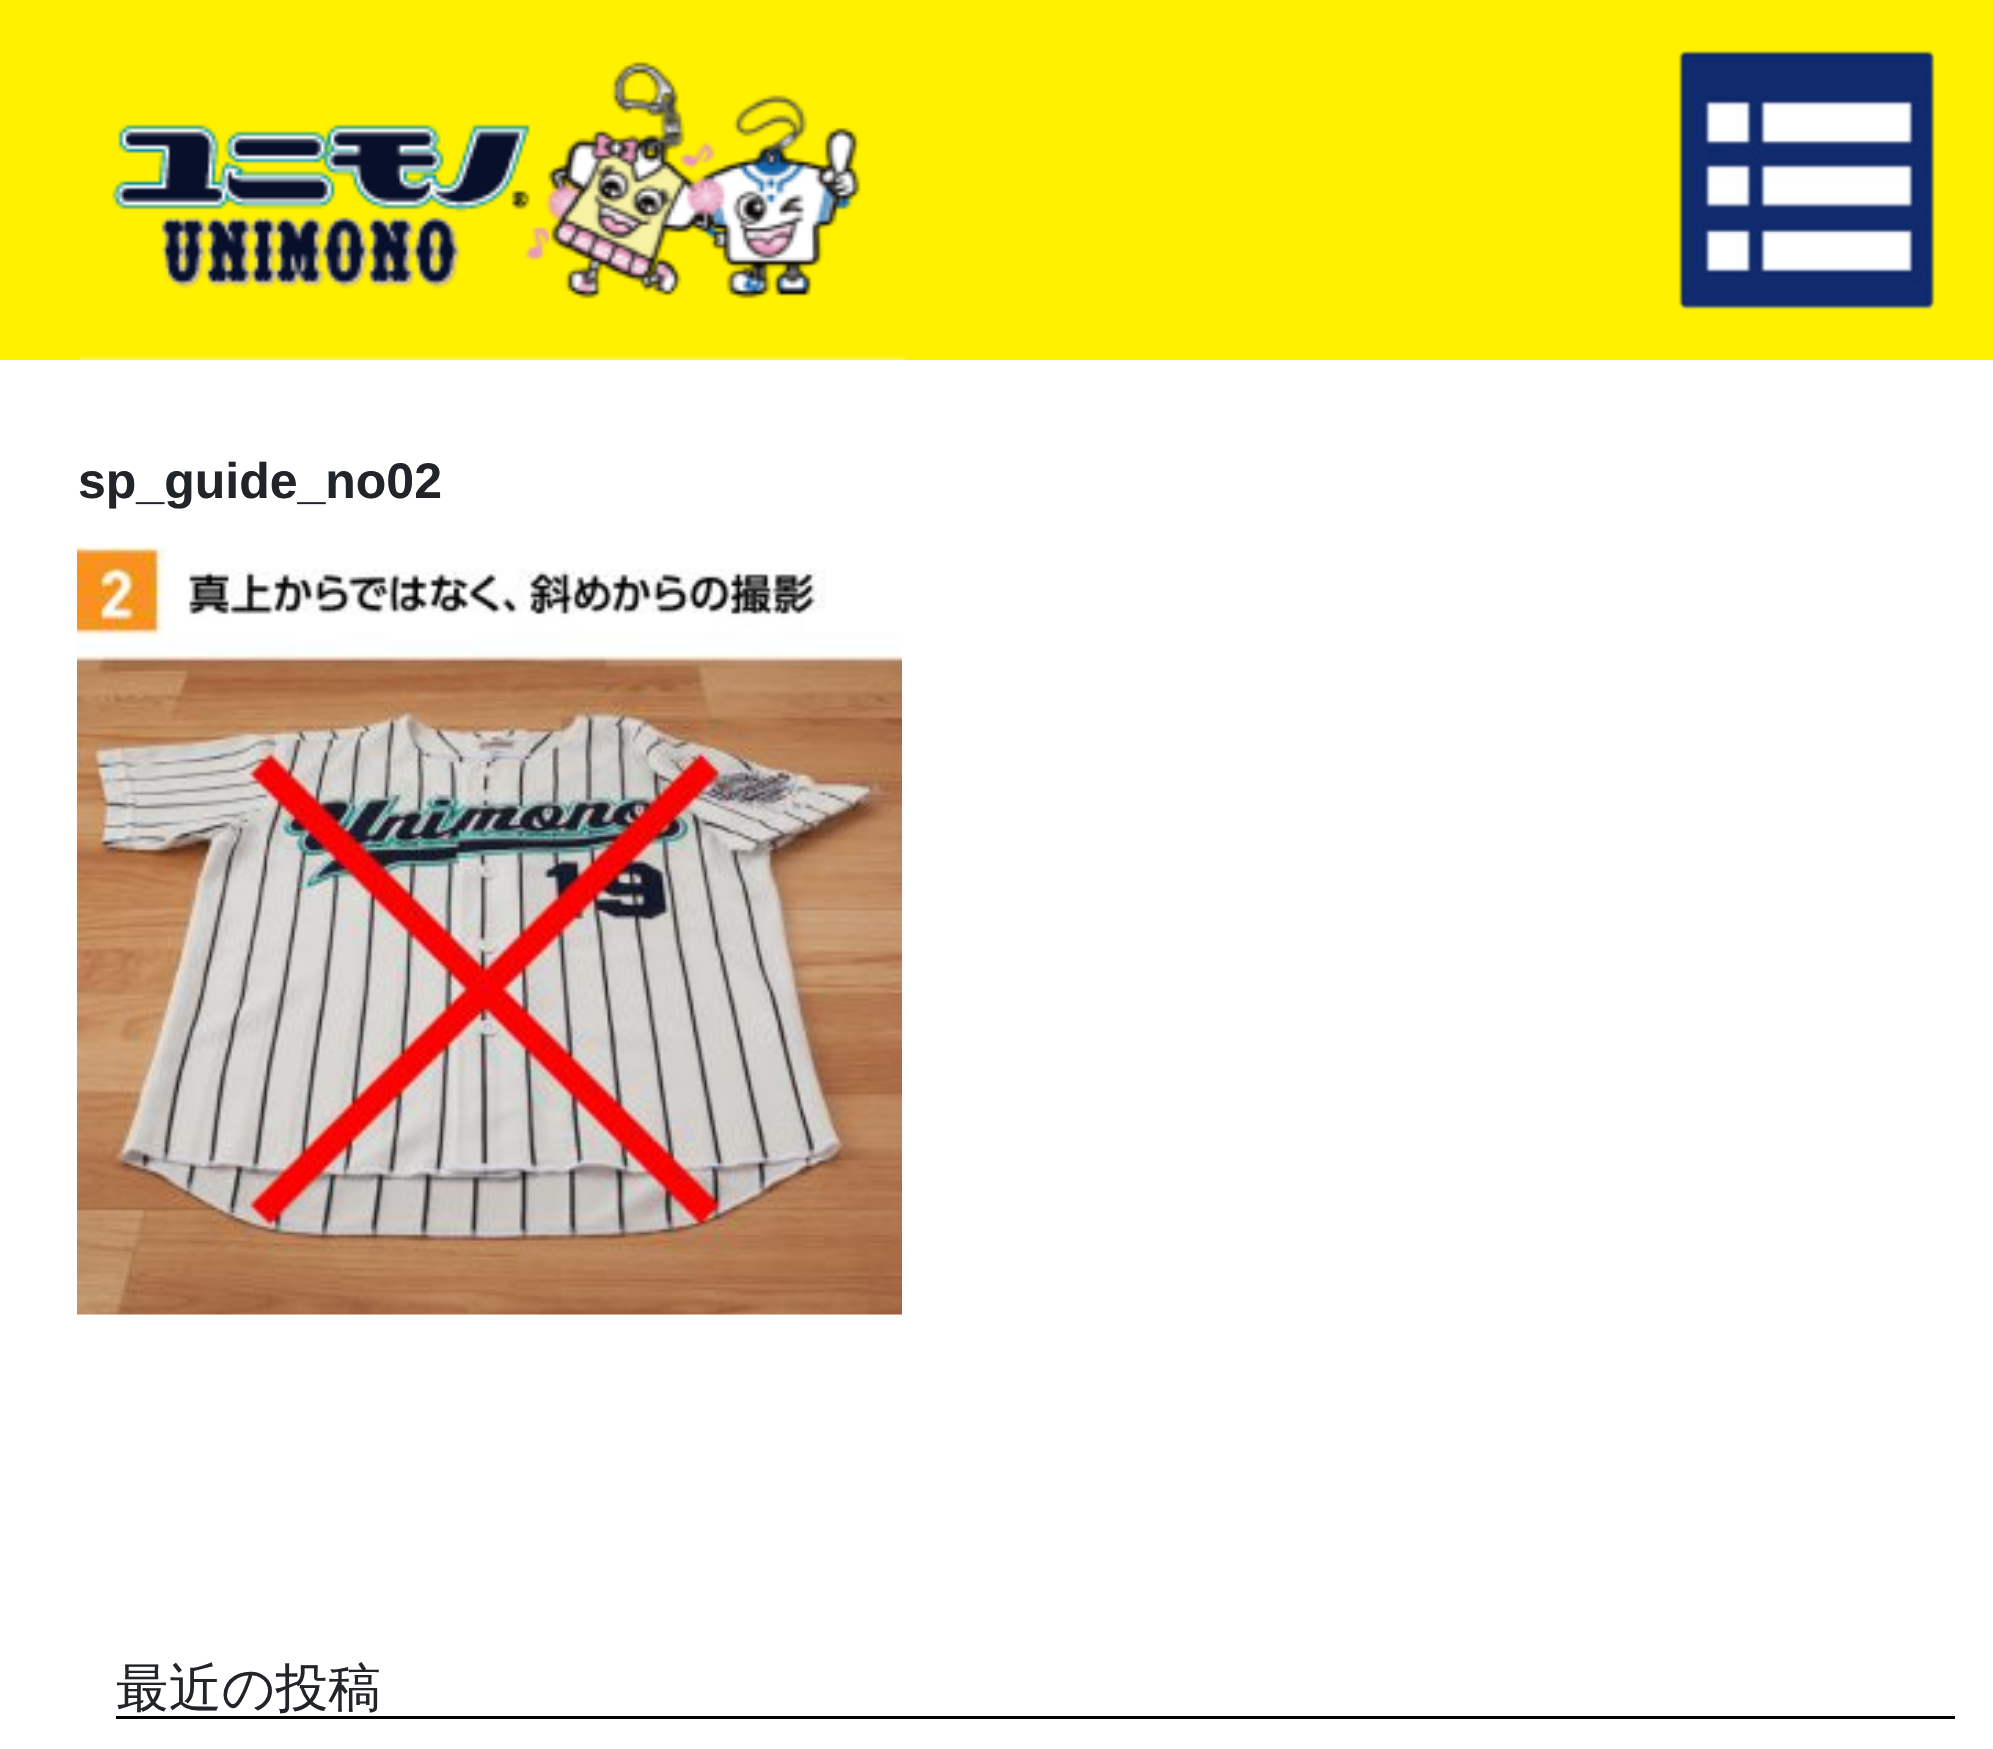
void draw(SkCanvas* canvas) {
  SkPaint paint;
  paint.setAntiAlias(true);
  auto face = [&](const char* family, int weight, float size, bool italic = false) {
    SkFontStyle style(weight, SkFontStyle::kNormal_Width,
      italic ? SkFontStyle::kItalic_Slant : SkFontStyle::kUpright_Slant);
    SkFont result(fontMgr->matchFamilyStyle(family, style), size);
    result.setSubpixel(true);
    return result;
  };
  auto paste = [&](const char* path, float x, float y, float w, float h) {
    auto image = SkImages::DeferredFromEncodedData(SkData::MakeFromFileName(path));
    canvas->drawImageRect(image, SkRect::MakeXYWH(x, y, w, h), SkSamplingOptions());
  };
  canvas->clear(0xffffffff);
  paint.setColor(0xfffff100);
  canvas->drawRect(SkRect::MakeXYWH(0, 0, 1993, 360), paint);
  paste("img/1.png", 1678, 50, 257, 260);
  paste("img/2.png", 79, 61, 828, 299);
  paste("img/3.png", 77, 547, 825, 768);
  paint.setColor(0xff000000);
  canvas->drawRect(SkRect::MakeXYWH(116, 1716, 1839, 3), paint);
  auto f0 = face("Liberation Sans", 700, 50);
  paint.setColor(0xff212529);
  canvas->drawString("sp_guide_no02", 78, 498, f0, paint);
  auto f1 = face("WenQuanYi Zen Hei", 500, 52.75f);
  canvas->drawString("最近の投稿", 116, 1706, f1, paint);
}
